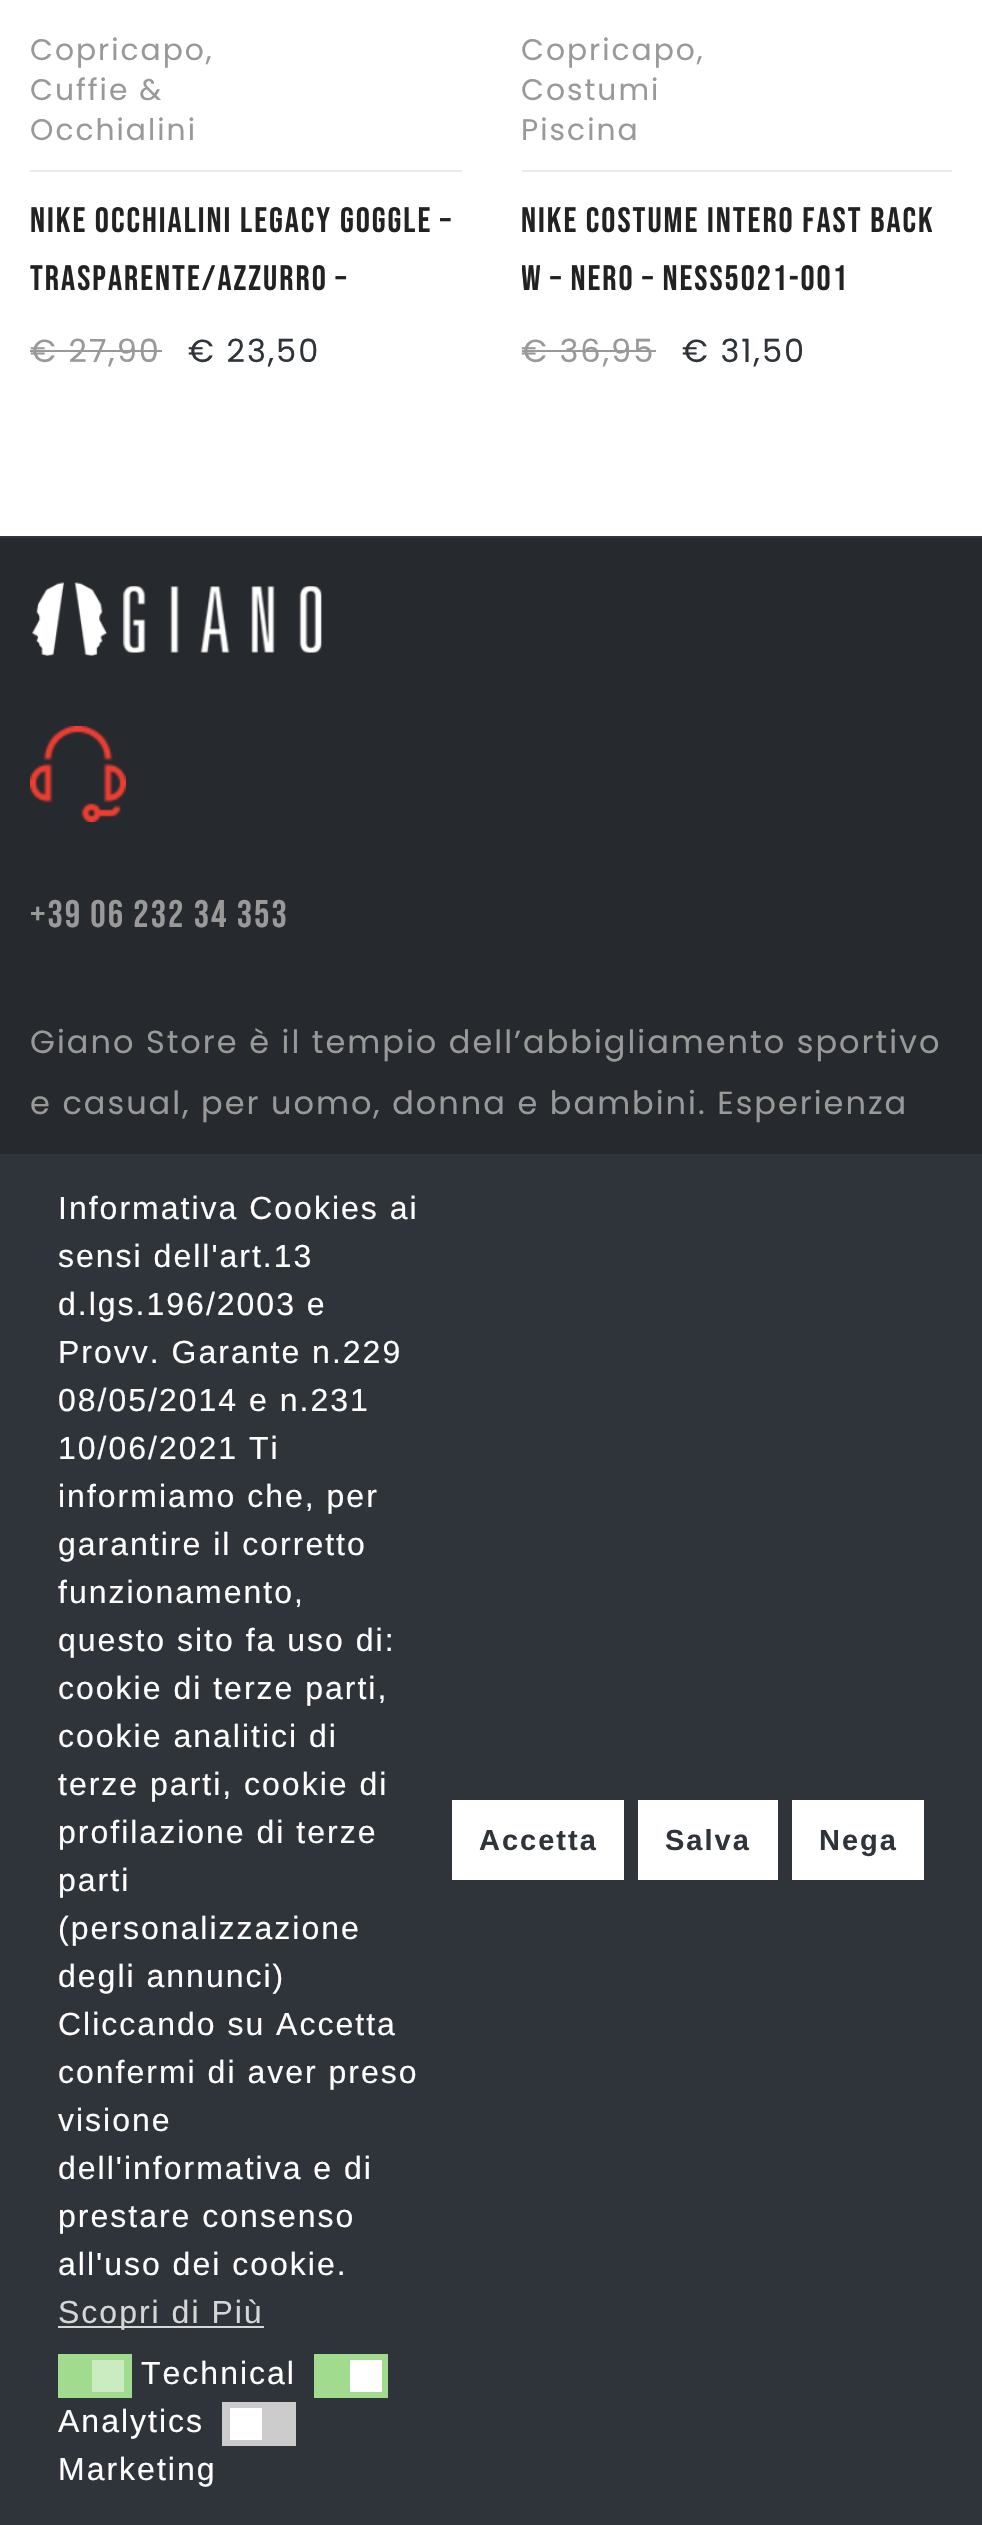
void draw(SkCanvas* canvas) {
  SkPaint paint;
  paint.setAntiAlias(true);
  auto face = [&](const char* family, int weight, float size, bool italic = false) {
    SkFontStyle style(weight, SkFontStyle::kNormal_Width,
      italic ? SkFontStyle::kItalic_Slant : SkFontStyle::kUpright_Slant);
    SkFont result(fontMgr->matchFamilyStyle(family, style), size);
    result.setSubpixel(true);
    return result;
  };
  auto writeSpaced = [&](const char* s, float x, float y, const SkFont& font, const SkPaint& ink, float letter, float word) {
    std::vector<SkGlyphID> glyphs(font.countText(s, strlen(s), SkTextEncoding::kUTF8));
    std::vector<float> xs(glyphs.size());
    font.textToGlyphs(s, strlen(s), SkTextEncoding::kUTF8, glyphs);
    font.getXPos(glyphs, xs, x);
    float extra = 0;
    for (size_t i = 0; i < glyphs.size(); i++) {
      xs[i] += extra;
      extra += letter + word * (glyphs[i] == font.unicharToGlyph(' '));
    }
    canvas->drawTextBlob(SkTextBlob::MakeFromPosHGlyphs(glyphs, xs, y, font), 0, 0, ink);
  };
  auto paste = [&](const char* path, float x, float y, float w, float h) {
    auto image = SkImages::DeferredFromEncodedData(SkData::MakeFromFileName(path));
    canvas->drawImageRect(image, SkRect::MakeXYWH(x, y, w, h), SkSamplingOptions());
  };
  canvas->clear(0xffffffff);
  {
    const struct { float x, y, w, h; SkColor color; } items[] = {
      {30, 170, 432, 2, 0xffebebeb},
      {30, 350, 132, 2, 0xff999999},
      {522, 170, 430, 2, 0xffebebeb},
      {522, 350, 134, 2, 0xff999999},
      {0, 538, 982, 616, 0xff26292e},
      {0, 536, 982, 2, 0xff313438},
    };
    for (auto [x, y, w, h, color] : items) {
      paint.setColor(color);
      canvas->drawRect(SkRect::MakeXYWH(x, y, w, h), paint);
    }
  }
  paste("img/1.png", 32, 582, 290, 74);
  paste("img/2.png", 30, 726, 96, 96);
  {
    const struct { float x, y, w, h; SkColor color; } items[] = {
      {0, 1154, 982, 1371, 0xff2f333a},
      {58, 2326, 206, 2, 0xffd5d6d8},
      {58, 2354, 74, 44, 0xffa0db8e},
      {92, 2360, 32, 32, 0xffcbebc1},
      {314, 2354, 74, 44, 0xffa0db8e},
      {350, 2360, 32, 32, 0xffffffff},
      {222, 2402, 74, 44, 0xffcccccc},
      {230, 2408, 32, 32, 0xffffffff},
      {452, 1800, 172, 80, 0xffffffff},
      {638, 1800, 140, 80, 0xffffffff},
      {792, 1800, 132, 80, 0xffffffff},
    };
    for (auto [x, y, w, h, color] : items) {
      paint.setColor(color);
      canvas->drawRect(SkRect::MakeXYWH(x, y, w, h), paint);
    }
  }
  auto f0 = face("Poppins", 400, 29.75f);
  paint.setColor(0xff999999);
  {
    const struct { const char* s; float x, y; } items[] = {
      {"Copricapo,", 30, 60},
      {"Cuffie &", 30, 100},
      {"Occhialini", 30, 140},
    };
    for (auto [s, x, y] : items) {
      writeSpaced(s, x, y, f0, paint, 2, 0);
    }
  }
  auto f1 = face("Bebas Neue", 400, 35.25f);
  paint.setColor(0xff222222);
  writeSpaced("NIKE OCCHIALINI LEGACY GOGGLE –", 30, 232, f1, paint, 2, 0);
  writeSpaced("TRASPARENTE/AZZURRO –", 30, 290, f1, paint, 2, 0);
  auto f2 = face("Poppins", 400, 32);
  paint.setColor(0xff999999);
  writeSpaced("€ 27,90", 30, 362, f2, paint, 2, 0);
  paint.setColor(0xff2f333a);
  writeSpaced("€ 23,50", 188, 362, f2, paint, 2, 0);
  paint.setColor(0xff999999);
  {
    const struct { const char* s; float x, y; } items[] = {
      {"Copricapo,", 521, 60},
      {"Costumi", 521, 100},
      {"Piscina", 521, 140},
    };
    for (auto [s, x, y] : items) {
      writeSpaced(s, x, y, f0, paint, 2, 0);
    }
  }
  paint.setColor(0xff222222);
  writeSpaced("NIKE COSTUME INTERO FAST BACK", 521, 232, f1, paint, 2, 0);
  canvas->save();
  canvas->clipRect(SkRect::MakeXYWH(522, 192, 430, 116));
  writeSpaced("W – NERO – NESS5021-001", 521, 290, f1, paint, 2, 0);
  canvas->restore();
  paint.setColor(0xff999999);
  writeSpaced("€ 36,95", 521, 362, f2, paint, 2, 0);
  paint.setColor(0xff2f333a);
  writeSpaced("€ 31,50", 682, 362, f2, paint, 2, 0);
  auto f3 = face("Bebas Neue", 400, 38.5f);
  paint.setColor(0xff999999);
  writeSpaced("+39 06 232 34 353", 30, 927, f3, paint, 2, 0);
  writeSpaced("Giano Store è il tempio dell’abbigliamento sportivo", 30, 1053, f2, paint, 2, 0);
  writeSpaced("e casual, per uomo, donna e bambini. Esperienza", 30, 1114, f2, paint, 2, 0);
  auto f4 = face("Liberation Sans", 400, 32);
  paint.setColor(0xffffffff);
  {
    const struct { const char* s; float x, y; } items[] = {
      {"Informativa Cookies ai", 58, 1219},
      {"sensi dell'art.13", 58, 1267},
      {"d.lgs.196/2003 e", 58, 1315},
      {"Provv. Garante n.229", 58, 1363},
      {"08/05/2014 e n.231", 58, 1411},
      {"10/06/2021 Ti", 58, 1459},
      {"informiamo che, per", 58, 1507},
      {"garantire il corretto", 58, 1555},
      {"funzionamento,", 58, 1603},
      {"questo sito fa uso di:", 58, 1651},
      {"cookie di terze parti,", 58, 1699},
      {"cookie analitici di", 58, 1747},
      {"terze parti, cookie di", 58, 1795},
      {"profilazione di terze", 58, 1843},
      {"parti", 58, 1891},
      {"(personalizzazione", 58, 1939},
      {"degli annunci)", 58, 1987},
      {"Cliccando su Accetta", 58, 2035},
      {"confermi di aver preso", 58, 2083},
      {"visione", 58, 2131},
      {"dell'informativa e di", 58, 2179},
      {"prestare consenso", 58, 2227},
      {"all'uso dei cookie.", 58, 2275},
    };
    for (auto [s, x, y] : items) {
      writeSpaced(s, x, y, f4, paint, 2, 0);
    }
  }
  paint.setColor(0xffd5d6d8);
  writeSpaced("Scopri di Più", 58, 2323, f4, paint, 2, 0);
  paint.setColor(0xffffffff);
  {
    const struct { const char* s; float x, y; } items[] = {
      {"Technical", 141, 2384},
      {"Analytics", 58, 2432},
      {"Marketing", 58, 2480},
    };
    for (auto [s, x, y] : items) {
      writeSpaced(s, x, y, f4, paint, 2, 0);
    }
  }
  auto f5 = face("Liberation Sans", 700, 29);
  paint.setColor(0xff2f333a);
  {
    const struct { const char* s; float x, y; } items[] = {
      {"Accetta", 479, 1850},
      {"Salva", 665, 1850},
      {"Nega", 819, 1850},
    };
    for (auto [s, x, y] : items) {
      writeSpaced(s, x, y, f5, paint, 2, 0);
    }
  }
}
